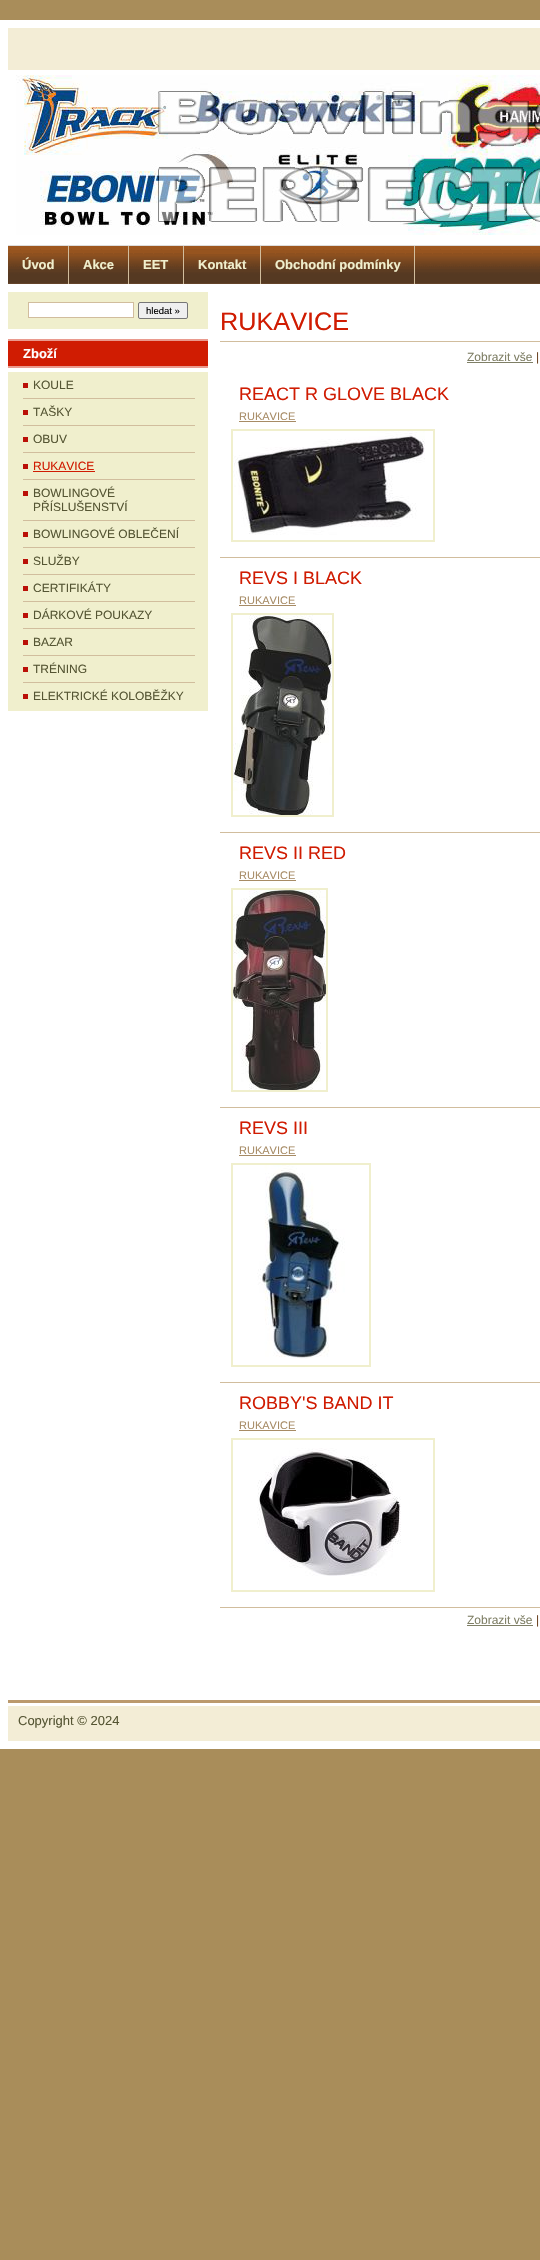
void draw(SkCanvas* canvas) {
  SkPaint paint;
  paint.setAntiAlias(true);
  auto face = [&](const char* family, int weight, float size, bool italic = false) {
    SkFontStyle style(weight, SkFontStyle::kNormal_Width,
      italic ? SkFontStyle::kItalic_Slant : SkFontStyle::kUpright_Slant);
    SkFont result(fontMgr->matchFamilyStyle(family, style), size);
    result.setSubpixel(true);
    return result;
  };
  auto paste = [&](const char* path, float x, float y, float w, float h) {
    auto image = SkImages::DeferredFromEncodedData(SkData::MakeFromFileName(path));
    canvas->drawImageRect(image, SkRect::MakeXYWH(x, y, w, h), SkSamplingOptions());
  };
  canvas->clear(0xffa98d5a);
  paint.setColor(0xffffffff);
  canvas->drawRect(SkRect::MakeXYWH(0, 20, 540, 1729), paint);
  paint.setColor(0xfff3edd6);
  canvas->drawRect(SkRect::MakeXYWH(8, 28, 532, 42), paint);
  paste("img/1.png", 16, 75, 524, 160);
  paste("img/2.png", 8, 246, 532, 38);
  paint.setColor(0xffdddddd);
  canvas->drawRect(SkRect::MakeXYWH(8, 245, 532, 1), paint);
  paint.setColor(0xffd1bd9d);
  canvas->drawRect(SkRect::MakeXYWH(68, 246, 1, 38), paint);
  paste("img/3.png", 69, 249, 55, 18);
  canvas->drawRect(SkRect::MakeXYWH(128, 246, 1, 38), paint);
  paste("img/4.png", 129, 249, 54, 18);
  {
    const struct { float x, y, w, h; SkColor color; } items[] = {
      {183, 246, 1, 38, 0xffd1bd9d},
      {186, 249, 75, 5, 0xff96541f},
      {260, 246, 1, 38, 0xffd1bd9d},
    };
    for (auto [x, y, w, h, color] : items) {
      paint.setColor(color);
      canvas->drawRect(SkRect::MakeXYWH(x, y, w, h), paint);
    }
  }
  paste("img/5.png", 261, 249, 153, 18);
  canvas->drawRect(SkRect::MakeXYWH(414, 246, 1, 38), paint);
  paint.setColor(0xfff0efcd);
  canvas->drawRect(SkRect::MakeXYWH(8, 292, 200, 37), paint);
  paint.setColor(0xffffffff);
  canvas->drawRect(SkRect::MakeXYWH(28.5f, 302.5f, 105, 15), paint);
  paint.setStroke(true);
  paint.setStrokeWidth(1);
  paint.setColor(0xffd1bd9d);
  canvas->drawRect(SkRect::MakeXYWH(28.5f, 302.5f, 105, 15), paint);
  paint.setStroke(false);
  paint.setColor(0xffefefef);
  canvas->drawRoundRect(SkRect::MakeXYWH(138.5f, 302.5f, 49, 16), 1.5f, 1.5f, paint);
  paint.setStroke(true);
  paint.setColor(0xff767676);
  canvas->drawRoundRect(SkRect::MakeXYWH(138.5f, 302.5f, 49, 16), 1.5f, 1.5f, paint);
  paint.setStroke(false);
  {
    const struct { float x, y, w, h; SkColor color; } items[] = {
      {8, 341, 200, 25, 0xffd01c02},
      {8, 339, 200, 2, 0xffea9a8e},
      {8, 366, 200, 2, 0xffea9a8e},
      {8, 372, 200, 339, 0xfff0efcd},
      {23, 383, 5, 5, 0xffba1007},
      {23, 410, 5, 5, 0xffba1007},
      {23, 398, 172, 1, 0xffd1bd9d},
      {23, 437, 5, 5, 0xffba1007},
      {23, 425, 172, 1, 0xffd1bd9d},
      {23, 464, 5, 5, 0xffba1007},
      {23, 452, 172, 1, 0xffd1bd9d},
      {33, 471, 62, 1, 0xffd01c02},
      {23, 491, 5, 5, 0xffba1007},
      {23, 479, 172, 1, 0xffd1bd9d},
      {23, 532, 5, 5, 0xffba1007},
      {23, 520, 172, 1, 0xffd1bd9d},
      {23, 559, 5, 5, 0xffba1007},
      {23, 547, 172, 1, 0xffd1bd9d},
      {23, 586, 5, 5, 0xffba1007},
      {23, 574, 172, 1, 0xffd1bd9d},
      {23, 613, 5, 5, 0xffba1007},
      {23, 601, 172, 1, 0xffd1bd9d},
      {23, 640, 5, 5, 0xffba1007},
      {23, 628, 172, 1, 0xffd1bd9d},
      {23, 667, 5, 5, 0xffba1007},
      {23, 655, 172, 1, 0xffd1bd9d},
      {23, 694, 5, 5, 0xffba1007},
      {23, 682, 172, 1, 0xffd1bd9d},
      {220, 341, 320, 1, 0xffd1bd9d},
      {467, 362, 66, 1, 0xff7f7f66},
      {220, 557, 320, 1, 0xffd1bd9d},
      {239, 421, 57, 1, 0xffa78b65},
    };
    for (auto [x, y, w, h, color] : items) {
      paint.setColor(color);
      canvas->drawRect(SkRect::MakeXYWH(x, y, w, h), paint);
    }
  }
  paint.setStroke(true);
  paint.setStrokeWidth(2);
  paint.setColor(0xfff0efcd);
  canvas->drawRect(SkRect::MakeXYWH(232, 430, 202, 111), paint);
  paste("img/6.png", 233, 431, 192, 104);
  paint.setStroke(false);
  paint.setColor(0xffd1bd9d);
  canvas->drawRect(SkRect::MakeXYWH(220, 832, 320, 1), paint);
  paint.setColor(0xffa78b65);
  canvas->drawRect(SkRect::MakeXYWH(239, 605, 57, 1), paint);
  paint.setStroke(true);
  paint.setColor(0xfff0efcd);
  canvas->drawRect(SkRect::MakeXYWH(232, 614, 101, 202), paint);
  paste("img/7.png", 233, 615, 99, 200);
  paint.setStroke(false);
  paint.setColor(0xffd1bd9d);
  canvas->drawRect(SkRect::MakeXYWH(220, 1107, 320, 1), paint);
  paint.setColor(0xffa78b65);
  canvas->drawRect(SkRect::MakeXYWH(239, 880, 57, 1), paint);
  paint.setStroke(true);
  paint.setColor(0xfff0efcd);
  canvas->drawRect(SkRect::MakeXYWH(232, 889, 95, 202), paint);
  paste("img/8.png", 233, 890, 93, 200);
  paint.setStroke(false);
  paint.setColor(0xffd1bd9d);
  canvas->drawRect(SkRect::MakeXYWH(220, 1382, 320, 1), paint);
  paint.setColor(0xffa78b65);
  canvas->drawRect(SkRect::MakeXYWH(239, 1155, 57, 1), paint);
  paint.setStroke(true);
  paint.setColor(0xfff0efcd);
  canvas->drawRect(SkRect::MakeXYWH(232, 1164, 138, 202), paint);
  paste("img/9.png", 257, 1165, 88, 194);
  paint.setStroke(false);
  paint.setColor(0xffd1bd9d);
  canvas->drawRect(SkRect::MakeXYWH(220, 1607, 320, 1), paint);
  paint.setColor(0xffa78b65);
  canvas->drawRect(SkRect::MakeXYWH(239, 1430, 57, 1), paint);
  paint.setStroke(true);
  paint.setColor(0xfff0efcd);
  canvas->drawRect(SkRect::MakeXYWH(232, 1439, 202, 152), paint);
  paste("img/10.png", 257, 1448, 144, 128);
  paint.setStroke(false);
  paint.setColor(0xff7f7f66);
  canvas->drawRect(SkRect::MakeXYWH(467, 1625, 66, 1), paint);
  paint.setColor(0xfff3edd6);
  canvas->drawRect(SkRect::MakeXYWH(8, 1706, 532, 35), paint);
  paste("img/11.png", 8, 1700, 532, 6);
  auto f0 = face("Liberation Sans", 700, 13);
  paint.setColor(0xfff0efcd);
  {
    const struct { const char* s; float x, y; } items[] = {
      {"Úvod", 22, 269},
      {"Akce", 83, 269},
      {"EET", 143, 269},
      {"Kontakt", 198, 269},
      {"Obchodní podmínky", 275, 269},
    };
    for (auto [s, x, y] : items) {
      canvas->drawString(s, x, y, f0, paint);
    }
  }
  auto f1 = face("Liberation Sans", 400, 9.5f);
  paint.setColor(0xff000000);
  canvas->drawString("hledat »", 146, 314, f1, paint);
  paint.setColor(0xffffffff);
  canvas->drawString("Zboží", 23, 358, f0, paint);
  auto f2 = face("Liberation Sans", 400, 12);
  paint.setColor(0xff555533);
  {
    const struct { const char* s; float x, y; } items[] = {
      {"KOULE", 33, 389},
      {"TAŠKY", 33, 416},
      {"OBUV", 33, 443},
    };
    for (auto [s, x, y] : items) {
      canvas->drawString(s, x, y, f2, paint);
    }
  }
  paint.setColor(0xffd01c02);
  canvas->drawString("RUKAVICE", 33, 470, f2, paint);
  paint.setColor(0xff555533);
  {
    const struct { const char* s; float x, y; } items[] = {
      {"BOWLINGOVÉ", 33, 497},
      {"PŘÍSLUŠENSTVÍ", 33, 511},
      {"BOWLINGOVÉ OBLEČENÍ", 33, 538},
      {"SLUŽBY", 33, 565},
      {"CERTIFIKÁTY", 33, 592},
      {"DÁRKOVÉ POUKAZY", 33, 619},
      {"BAZAR", 33, 646},
      {"TRÉNING", 33, 673},
      {"ELEKTRICKÉ KOLOBĚŽKY", 33, 700},
    };
    for (auto [s, x, y] : items) {
      canvas->drawString(s, x, y, f2, paint);
    }
  }
  auto f3 = face("Liberation Sans", 400, 25.25f);
  paint.setColor(0xffd01c02);
  canvas->drawString("RUKAVICE", 220, 330, f3, paint);
  paint.setColor(0xff7f7f66);
  canvas->drawString("Zobrazit vše", 467, 361, f2, paint);
  paint.setColor(0xff69401f);
  canvas->drawString("|", 536, 361, f2, paint);
  auto f4 = face("Liberation Sans", 400, 18);
  paint.setColor(0xffd01c02);
  canvas->drawString("REACT R GLOVE BLACK", 239, 400, f4, paint);
  auto f5 = face("Liberation Sans", 400, 11);
  paint.setColor(0xffa78b65);
  canvas->drawString("RUKAVICE", 239, 420, f5, paint);
  paint.setColor(0xffd01c02);
  canvas->drawString("REVS I BLACK", 239, 584, f4, paint);
  paint.setColor(0xffa78b65);
  canvas->drawString("RUKAVICE", 239, 604, f5, paint);
  paint.setColor(0xffd01c02);
  canvas->drawString("REVS II RED", 239, 859, f4, paint);
  paint.setColor(0xffa78b65);
  canvas->drawString("RUKAVICE", 239, 879, f5, paint);
  paint.setColor(0xffd01c02);
  canvas->drawString("REVS III", 239, 1134, f4, paint);
  paint.setColor(0xffa78b65);
  canvas->drawString("RUKAVICE", 239, 1154, f5, paint);
  paint.setColor(0xffd01c02);
  canvas->drawString("ROBBY'S BAND IT", 239, 1409, f4, paint);
  paint.setColor(0xffa78b65);
  canvas->drawString("RUKAVICE", 239, 1429, f5, paint);
  paint.setColor(0xff7f7f66);
  canvas->drawString("Zobrazit vše", 467, 1624, f2, paint);
  paint.setColor(0xff69401f);
  canvas->drawString("|", 536, 1624, f2, paint);
  auto f6 = face("Liberation Sans", 400, 13);
  paint.setColor(0xff555533);
  canvas->drawString("Copyright © 2024", 18, 1725, f6, paint);
}
